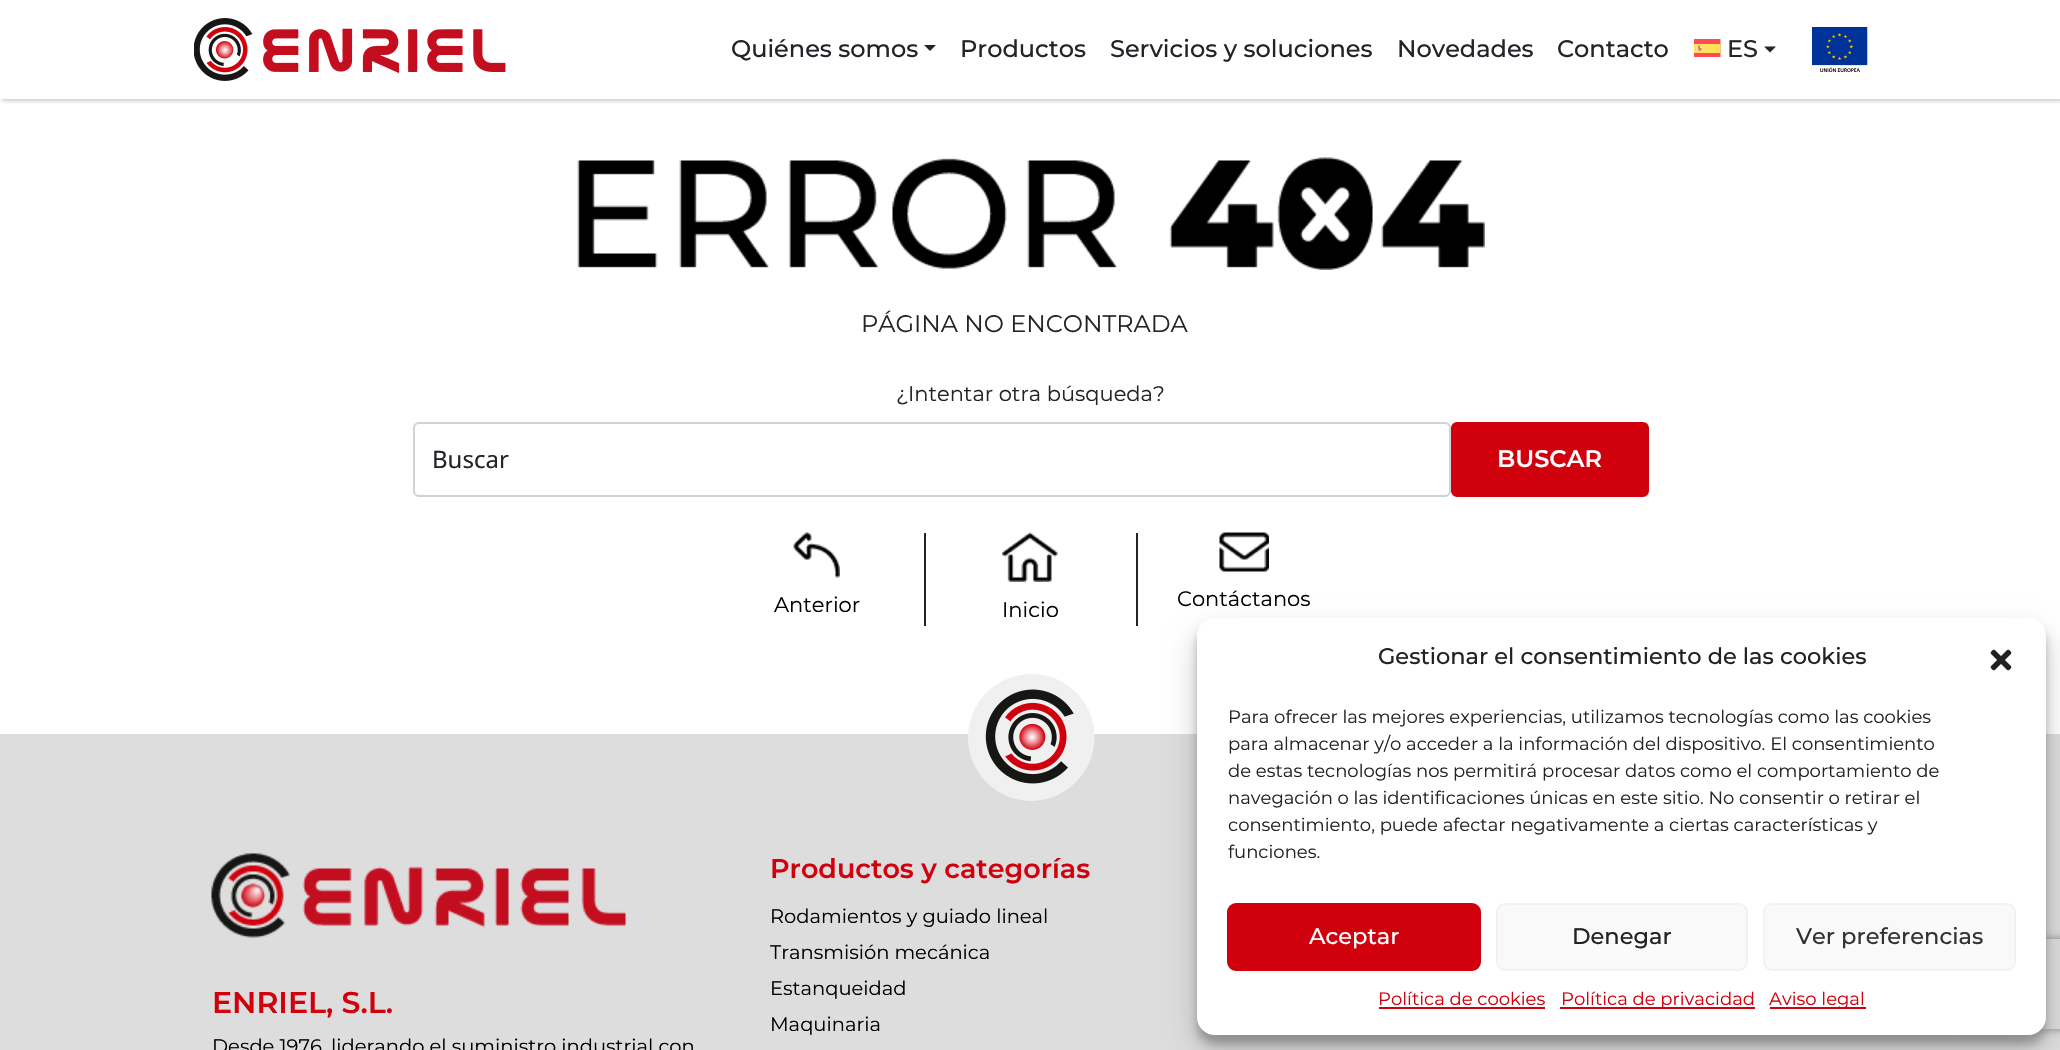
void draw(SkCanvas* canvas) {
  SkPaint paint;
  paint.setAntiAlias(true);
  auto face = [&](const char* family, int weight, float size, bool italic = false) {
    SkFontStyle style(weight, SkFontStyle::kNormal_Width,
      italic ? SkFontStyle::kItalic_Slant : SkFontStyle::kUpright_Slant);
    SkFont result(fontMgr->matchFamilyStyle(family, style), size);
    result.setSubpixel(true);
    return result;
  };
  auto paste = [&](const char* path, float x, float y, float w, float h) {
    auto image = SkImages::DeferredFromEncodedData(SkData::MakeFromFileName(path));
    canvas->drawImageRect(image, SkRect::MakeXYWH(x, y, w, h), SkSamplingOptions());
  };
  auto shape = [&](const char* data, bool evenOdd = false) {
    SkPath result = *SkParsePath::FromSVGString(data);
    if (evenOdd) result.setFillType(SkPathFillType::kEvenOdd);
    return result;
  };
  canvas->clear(0xffffffff);
  canvas->save();
  canvas->clipRect(SkRect::MakeXYWH(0, 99, 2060, 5));
  paint.setColor(0x33000000);
  paint.setMaskFilter(SkMaskFilter::MakeBlur(kNormal_SkBlurStyle, 2));
  canvas->drawRect(SkRect::MakeXYWH(2, 2, 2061, 99), paint);
  paint.setMaskFilter(nullptr);
  canvas->restore();
  paste("img/1.png", 194, 18, 312, 63);
  paint.setColor(0xff212529);
  canvas->drawPath(shape("M924 45H936L930 51Z"), paint);
  paste("img/2.png", 1694, 39, 27, 18);
  canvas->drawPath(shape("M1764 46.5H1776L1770 52.5Z"), paint);
  paste("img/3.png", 1812, 27, 56, 45);
  paste("img/4.png", 577, 157, 908, 113);
  paint.setStroke(true);
  paint.setStrokeWidth(2);
  paint.setColor(0xffced4da);
  canvas->drawRoundRect(SkRect::MakeXYWH(414, 423, 1036, 73), 5, 5, paint);
  paint.setStroke(false);
  paint.setColor(0xffd1000d);
  canvas->drawRoundRect(SkRect::MakeXYWH(1452, 423, 196, 73), 5, 5, paint);
  paint.setStroke(true);
  canvas->drawRoundRect(SkRect::MakeXYWH(1452, 423, 196, 73), 5, 5, paint);
  paste("img/5.png", 793, 532, 47, 46);
  paint.setStroke(false);
  paint.setColor(0xff212529);
  canvas->drawRect(SkRect::MakeXYWH(1136, 533, 2, 93), paint);
  canvas->drawRect(SkRect::MakeXYWH(924, 533, 2, 93), paint);
  paste("img/6.png", 1002, 532, 56, 50);
  paste("img/7.png", 1219, 532, 50, 40);
  paint.setColor(0xffdddddd);
  canvas->drawRect(SkRect::MakeXYWH(0, 734, 2060, 316), paint);
  paste("img/8.png", 968, 674, 127, 127);
  paste("img/9.png", 211, 853, 415, 85);
  paint.setColor(0x3b000000);
  paint.setMaskFilter(SkMaskFilter::MakeBlur(kNormal_SkBlurStyle, 4.5f));
  canvas->drawRoundRect(SkRect::MakeXYWH(1197, 627, 849, 417), 18, 18, paint);
  paint.setMaskFilter(nullptr);
  paint.setColor(0x30000000);
  paint.setMaskFilter(SkMaskFilter::MakeBlur(kNormal_SkBlurStyle, 15));
  canvas->drawRoundRect(SkRect::MakeXYWH(1197, 633, 849, 417), 18, 18, paint);
  paint.setMaskFilter(nullptr);
  canvas->save();
  canvas->clipPath(shape("M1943 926H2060V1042H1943ZM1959 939H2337C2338.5 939 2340 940.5 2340 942V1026C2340 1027.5 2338.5 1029 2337 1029H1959C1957.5 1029 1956 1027.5 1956 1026V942C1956 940.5 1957.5 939 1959 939Z", true), true);
  paint.setColor(0xff808080);
  paint.setMaskFilter(SkMaskFilter::MakeBlur(kNormal_SkBlurStyle, 4));
  canvas->drawRoundRect(SkRect::MakeXYWH(1956, 939, 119, 90), 3, 3, paint);
  paint.setMaskFilter(nullptr);
  canvas->restore();
  paint.setColor(0xffffffff);
  canvas->drawRoundRect(SkRect::MakeXYWH(1197, 618, 849, 417), 18, 18, paint);
  paste("img/10.png", 1990, 649, 22, 22);
  paint.setColor(0xffd1000d);
  canvas->drawRoundRect(SkRect::MakeXYWH(1228, 904, 252, 66), 8, 8, paint);
  paint.setStroke(true);
  canvas->drawRoundRect(SkRect::MakeXYWH(1228, 904, 252, 66), 8, 8, paint);
  paint.setStroke(false);
  paint.setColor(0xfff9f9f9);
  canvas->drawRoundRect(SkRect::MakeXYWH(1497, 904, 250, 66), 8, 8, paint);
  paint.setStroke(true);
  paint.setColor(0xfff2f2f2);
  canvas->drawRoundRect(SkRect::MakeXYWH(1497, 904, 250, 66), 8, 8, paint);
  paint.setStroke(false);
  paint.setColor(0xfff9f9f9);
  canvas->drawRoundRect(SkRect::MakeXYWH(1764, 904, 251, 66), 8, 8, paint);
  paint.setStroke(true);
  paint.setColor(0xfff2f2f2);
  canvas->drawRoundRect(SkRect::MakeXYWH(1764, 904, 251, 66), 8, 8, paint);
  paint.setStroke(false);
  {
    const struct { float x, y, w, h; SkColor color; } items[] = {
      {1379, 1007, 166, 2, 0xffd1000d},
      {1560, 1007, 195, 2, 0xffd1000d},
      {1770, 1007, 96, 2, 0xffd1000d},
    };
    for (auto [x, y, w, h, color] : items) {
      paint.setColor(color);
      canvas->drawRect(SkRect::MakeXYWH(x, y, w, h), paint);
    }
  }
  auto f0 = face("Montserrat", 500, 24);
  paint.setColor(0xff212529);
  {
    const struct { const char* s; float x, y; } items[] = {
      {"Quiénes somos", 731, 57},
      {"Productos", 960, 57},
      {"Servicios y soluciones", 1110, 57},
      {"Novedades", 1397, 57},
      {"Contacto", 1557, 57},
      {"ES", 1727, 57},
    };
    for (auto [s, x, y] : items) {
      canvas->drawString(s, x, y, f0, paint);
    }
  }
  auto f1 = face("Montserrat", 400, 24);
  canvas->drawString("PÁGINA NO ENCONTRADA", 861, 332, f1, paint);
  auto f2 = face("Montserrat", 400, 21);
  canvas->drawString("¿Intentar otra búsqueda?", 896, 401, f2, paint);
  auto f3 = face("Noto Sans", 400, 24);
  canvas->drawString("Buscar", 432, 468, f3, paint);
  auto f4 = face("Montserrat", 600, 24);
  paint.setColor(0xffffffff);
  canvas->drawString("BUSCAR", 1497, 467, f4, paint);
  paint.setColor(0xff000000);
  {
    const struct { const char* s; float x, y; } items[] = {
      {"Anterior", 774, 612},
      {"Inicio", 1002, 617},
      {"Contáctanos", 1177, 606},
    };
    for (auto [s, x, y] : items) {
      canvas->drawString(s, x, y, f2, paint);
    }
  }
  auto f5 = face("Montserrat", 600, 30);
  paint.setColor(0xffd1000d);
  canvas->drawString("ENRIEL, S.L.", 212, 1013, f5, paint);
  auto f6 = face("Montserrat", 400, 19.5f);
  paint.setColor(0xff000000);
  canvas->drawString("Desde 1976, liderando el suministro industrial con", 212, 1053, f6, paint);
  auto f7 = face("Montserrat", 600, 27);
  paint.setColor(0xffd1000d);
  canvas->drawString("Productos y categorías", 770, 878, f7, paint);
  paint.setColor(0xff000000);
  {
    const struct { const char* s; float x, y; } items[] = {
      {"Rodamientos y guiado lineal", 770, 923},
      {"Transmisión mecánica", 770, 959},
      {"Estanqueidad", 770, 995},
      {"Maquinaria", 770, 1031},
    };
    for (auto [s, x, y] : items) {
      canvas->drawString(s, x, y, f6, paint);
    }
  }
  auto f8 = face("Montserrat", 500, 22.5f);
  paint.setColor(0xff222222);
  canvas->drawString("Gestionar el consentimiento de las cookies", 1378, 664, f8, paint);
  auto f9 = face("Montserrat", 400, 18);
  {
    const struct { const char* s; float x, y; } items[] = {
      {"Para ofrecer las mejores experiencias, utilizamos tecnologías como las cookies", 1228, 723},
      {"para almacenar y/o acceder a la información del dispositivo. El consentimiento", 1228, 750},
      {"de estas tecnologías nos permitirá procesar datos como el comportamiento de", 1228, 777},
      {"navegación o las identificaciones únicas en este sitio. No consentir o retirar el", 1228, 804},
      {"consentimiento, puede afectar negativamente a ciertas características y", 1228, 831},
      {"funciones.", 1228, 858},
    };
    for (auto [s, x, y] : items) {
      canvas->drawString(s, x, y, f9, paint);
    }
  }
  paint.setColor(0xffffffff);
  canvas->drawString("Aceptar", 1309, 944, f8, paint);
  paint.setColor(0xff222222);
  canvas->drawString("Denegar", 1572, 944, f8, paint);
  paint.setColor(0xff333333);
  canvas->drawString("Ver preferencias", 1796, 944, f8, paint);
  paint.setColor(0xffd1000d);
  {
    const struct { const char* s; float x, y; } items[] = {
      {"Política de cookies", 1378, 1005},
      {"Política de privacidad", 1561, 1005},
      {"Aviso legal", 1769, 1005},
    };
    for (auto [s, x, y] : items) {
      canvas->drawString(s, x, y, f9, paint);
    }
  }
}
